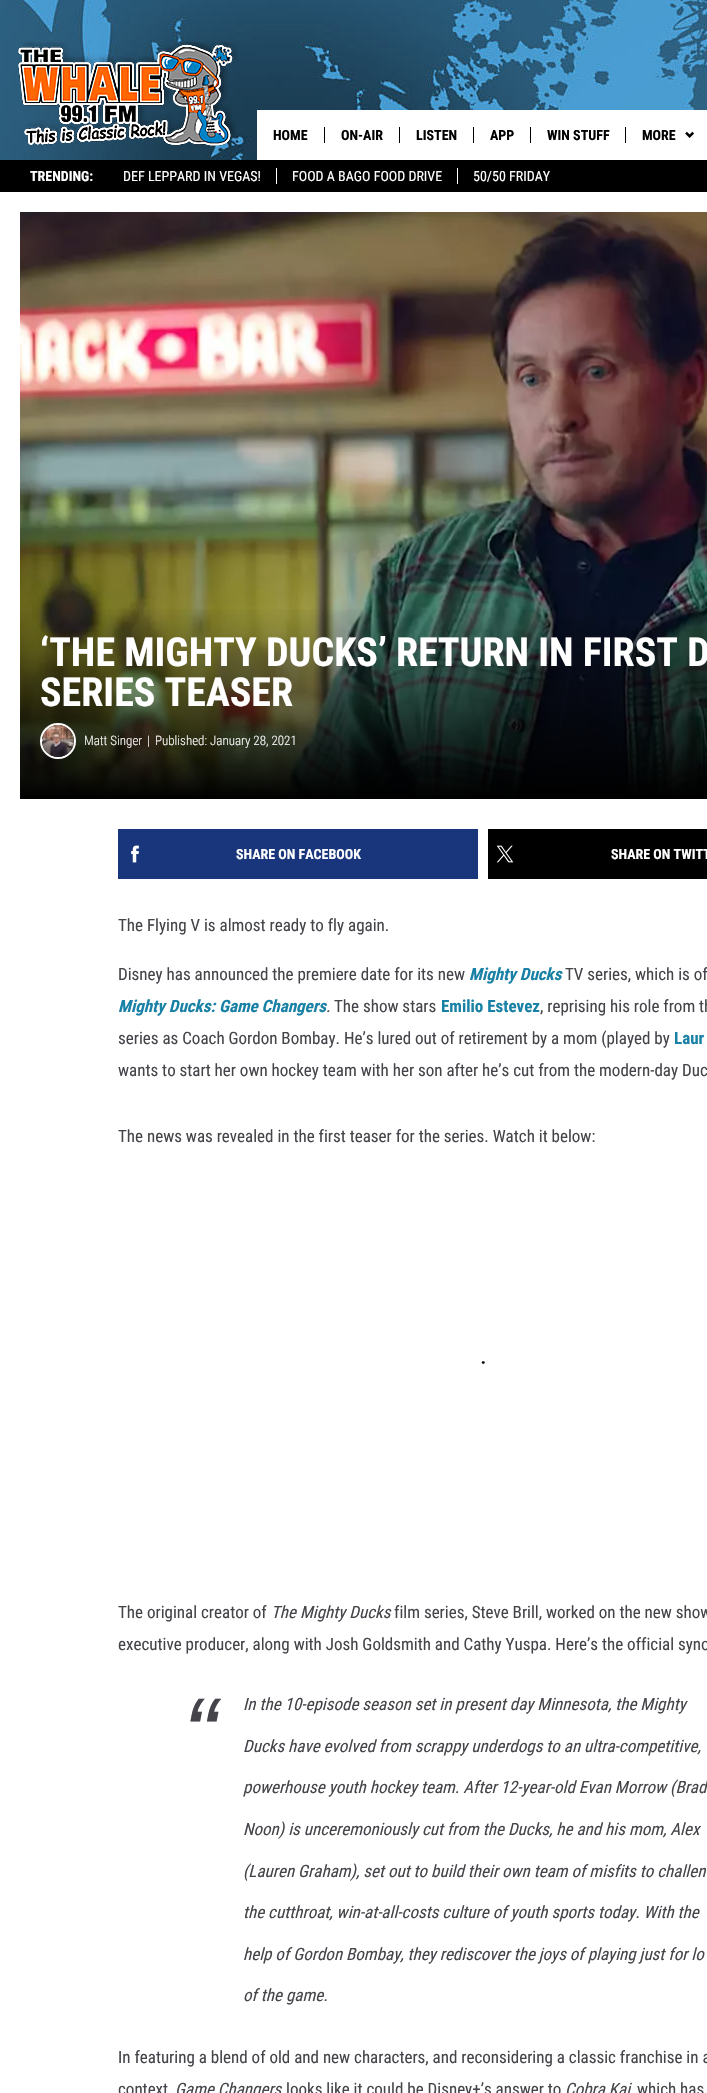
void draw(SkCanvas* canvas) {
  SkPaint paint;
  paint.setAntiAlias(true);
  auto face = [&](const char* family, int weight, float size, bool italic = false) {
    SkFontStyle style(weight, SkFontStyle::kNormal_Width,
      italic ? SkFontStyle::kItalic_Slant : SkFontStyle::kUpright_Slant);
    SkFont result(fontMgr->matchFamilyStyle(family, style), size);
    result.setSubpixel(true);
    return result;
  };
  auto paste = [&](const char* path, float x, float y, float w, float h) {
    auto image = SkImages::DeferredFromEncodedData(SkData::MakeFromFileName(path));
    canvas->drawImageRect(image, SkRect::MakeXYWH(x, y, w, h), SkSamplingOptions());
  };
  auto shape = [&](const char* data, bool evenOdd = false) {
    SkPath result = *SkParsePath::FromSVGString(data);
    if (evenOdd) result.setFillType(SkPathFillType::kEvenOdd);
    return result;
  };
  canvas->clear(0xffffffff);
  paste("img/1.png", 0, 0, 707, 160);
  paste("img/2.png", 18, 42, 220, 106);
  {
    const struct { float x, y, w, h; SkColor color; } items[] = {
      {257, 110, 450, 50, 0xffffffff},
      {324, 127, 1, 16, 0xff000000},
      {399, 127, 1, 16, 0xff000000},
      {473, 127, 1, 16, 0xff000000},
      {530, 127, 1, 16, 0xff000000},
      {625, 127, 1, 16, 0xff000000},
    };
    for (auto [x, y, w, h, color] : items) {
      paint.setColor(color);
      canvas->drawRect(SkRect::MakeXYWH(x, y, w, h), paint);
    }
  }
  paste("img/3.png", 685, 131, 9, 7);
  {
    const struct { float x, y, w, h; SkColor color; } items[] = {
      {0, 160, 707, 32, 0xff000000},
      {276, 168, 1, 16, 0xffffffff},
      {457, 168, 1, 16, 0xffffffff},
    };
    for (auto [x, y, w, h, color] : items) {
      paint.setColor(color);
      canvas->drawRect(SkRect::MakeXYWH(x, y, w, h), paint);
    }
  }
  paste("img/4.png", 20, 212, 687, 586);
  {
    const SkColor colors[] = {0x00000000, 0xff000000};
    const float stops[] = {0, 1};
    const SkPoint ends[] = {{483, 605}, {483, 799}};
    paint.setShader(SkGradientShader::MakeLinear(ends, colors, stops, 2, SkTileMode::kClamp));
    paint.setAlpha(255);
  }
  canvas->drawRect(SkRect::MakeXYWH(20, 609, 687, 190), paint);
  paint.setStroke(true);
  paint.setStrokeWidth(2);
  paint.setShader(nullptr);
  paint.setColor(0xffffffff);
  canvas->drawCircle(58, 741, 17, paint);
  paste("img/5.png", 42, 725, 32, 32);
  paint.setStroke(false);
  paint.setColor(0xff19367c);
  canvas->drawRect(SkRect::MakeXYWH(118, 829, 360, 50), paint);
  paste("img/6.png", 131, 845, 8, 18);
  paint.setColor(0xff000000);
  canvas->drawRect(SkRect::MakeXYWH(488, 829, 219, 50), paint);
  paste("img/7.png", 496, 845, 18, 18);
  paint.setStroke(true);
  paint.setStrokeWidth(2.4f);
  paint.setStrokeCap(SkPaint::kRound_Cap);
  canvas->drawPath(shape("M483 1362.5H483.5"), paint);
  auto f0 = face("Roboto Condensed", 700, 14);
  paint.setStroke(false);
  {
    const struct { const char* s; float x, y; } items[] = {
      {"HOME", 273, 140},
      {"ON-AIR", 341, 140},
      {"LISTEN", 416, 140},
      {"APP", 490, 140},
      {"WIN STUFF", 547, 140},
      {"MORE", 642, 140},
    };
    for (auto [s, x, y] : items) {
      canvas->drawString(s, x, y, f0, paint);
    }
  }
  paint.setColor(0xffffffff);
  canvas->drawString("TRENDING:", 30, 181, f0, paint);
  auto f1 = face("Roboto Condensed", 400, 14);
  {
    const struct { const char* s; float x, y; } items[] = {
      {"DEF LEPPARD IN VEGAS!", 123, 181},
      {"FOOD A BAGO FOOD DRIVE", 292, 181},
      {"50/50 FRIDAY", 473, 181},
    };
    for (auto [s, x, y] : items) {
      canvas->drawString(s, x, y, f1, paint);
    }
  }
  auto f2 = face("Roboto Condensed", 700, 40);
  canvas->drawString("‘THE MIGHTY DUCKS’ RETURN IN FIRST D", 40, 666, f2, paint);
  canvas->drawString("SERIES TEASER", 40, 706, f2, paint);
  auto f3 = face("Roboto Condensed", 300, 13);
  {
    const struct { const char* s; float x, y; } items[] = {
      {"Matt Singer", 84, 745},
      {"|", 147, 745},
      {"Published: January 28, 2021", 155, 745},
    };
    for (auto [s, x, y] : items) {
      canvas->drawString(s, x, y, f3, paint);
    }
  }
  canvas->drawString("SHARE ON FACEBOOK", 236, 859, f0, paint);
  canvas->drawString("SHARE ON TWITT", 611, 859, f0, paint);
  auto f4 = face("Roboto Condensed", 400, 17);
  paint.setColor(0xff45444a);
  canvas->drawString("The Flying V is almost ready to fly again.", 118, 931, f4, paint);
  canvas->drawString("Disney has announced the premiere date for its new", 118, 980, f4, paint);
  auto f5 = face("Roboto Condensed", 700, 17, true);
  paint.setColor(0xff1981a5);
  canvas->drawString("Mighty Ducks", 469, 980, f5, paint);
  paint.setColor(0xff45444a);
  canvas->drawString("TV series, which is of", 565, 980, f4, paint);
  paint.setColor(0xff1981a5);
  canvas->drawString("Mighty Ducks: Game Changers", 118, 1012, f5, paint);
  auto f6 = face("Roboto Condensed", 400, 17, true);
  paint.setColor(0xff45444a);
  canvas->drawString(".", 326, 1012, f6, paint);
  canvas->drawString("The show stars", 334, 1012, f4, paint);
  auto f7 = face("Roboto Condensed", 700, 17);
  paint.setColor(0xff1981a5);
  canvas->drawString("Emilio Estevez", 441, 1012, f7, paint);
  paint.setColor(0xff45444a);
  canvas->drawString(", reprising his role from th", 540, 1012, f4, paint);
  canvas->drawString("series as Coach Gordon Bombay. He’s lured out of retirement by a mom (played by", 118, 1044, f4, paint);
  paint.setColor(0xff1981a5);
  canvas->drawString("Laur", 674, 1044, f7, paint);
  paint.setColor(0xff45444a);
  {
    const struct { const char* s; float x, y; } items[] = {
      {"wants to start her own hockey team with her son after he’s cut from the modern-day Duc", 118, 1076},
      {"The news was revealed in the first teaser for the series. Watch it below:", 118, 1142},
      {"The original creator of", 118, 1618},
    };
    for (auto [s, x, y] : items) {
      canvas->drawString(s, x, y, f4, paint);
    }
  }
  canvas->drawString("The Mighty Ducks", 271, 1618, f6, paint);
  canvas->drawString("film series, Steve Brill, worked on the new show", 394, 1618, f4, paint);
  canvas->drawString("executive producer, along with Josh Goldsmith and Cathy Yuspa. Here’s the official syno", 118, 1650, f4, paint);
  auto f8 = face("Liberation Sans", 400, 102, true);
  canvas->drawString("“", 183, 1769, f8, paint);
  {
    const struct { const char* s; float x, y; } items[] = {
      {"In the 10-episode season set in present day Minnesota, the Mighty", 243, 1710},
      {"Ducks have evolved from scrappy underdogs to an ultra-competitive,", 243, 1752},
      {"powerhouse youth hockey team. After 12-year-old Evan Morrow (Brad", 243, 1793},
      {"Noon) is unceremoniously cut from the Ducks, he and his mom, Alex", 243, 1835},
      {"(Lauren Graham), set out to build their own team of misfits to challen", 243, 1877},
      {"the cutthroat, win-at-all-costs culture of youth sports today. With the", 243, 1918},
      {"help of Gordon Bombay, they rediscover the joys of playing just for lo", 243, 1960},
      {"of the game.", 243, 2001},
    };
    for (auto [s, x, y] : items) {
      canvas->drawString(s, x, y, f6, paint);
    }
  }
  canvas->drawString("In featuring a blend of old and new characters, and reconsidering a classic franchise in a", 118, 2063, f4, paint);
  canvas->drawString("context", 118, 2095, f4, paint);
  canvas->drawString("Game Changers", 175, 2095, f6, paint);
  canvas->drawString("looks like it could be Disney+’s answer to", 286, 2095, f4, paint);
  canvas->drawString("Cobra Kai", 565, 2095, f6, paint);
  canvas->drawString("which has", 637, 2095, f4, paint);
}
